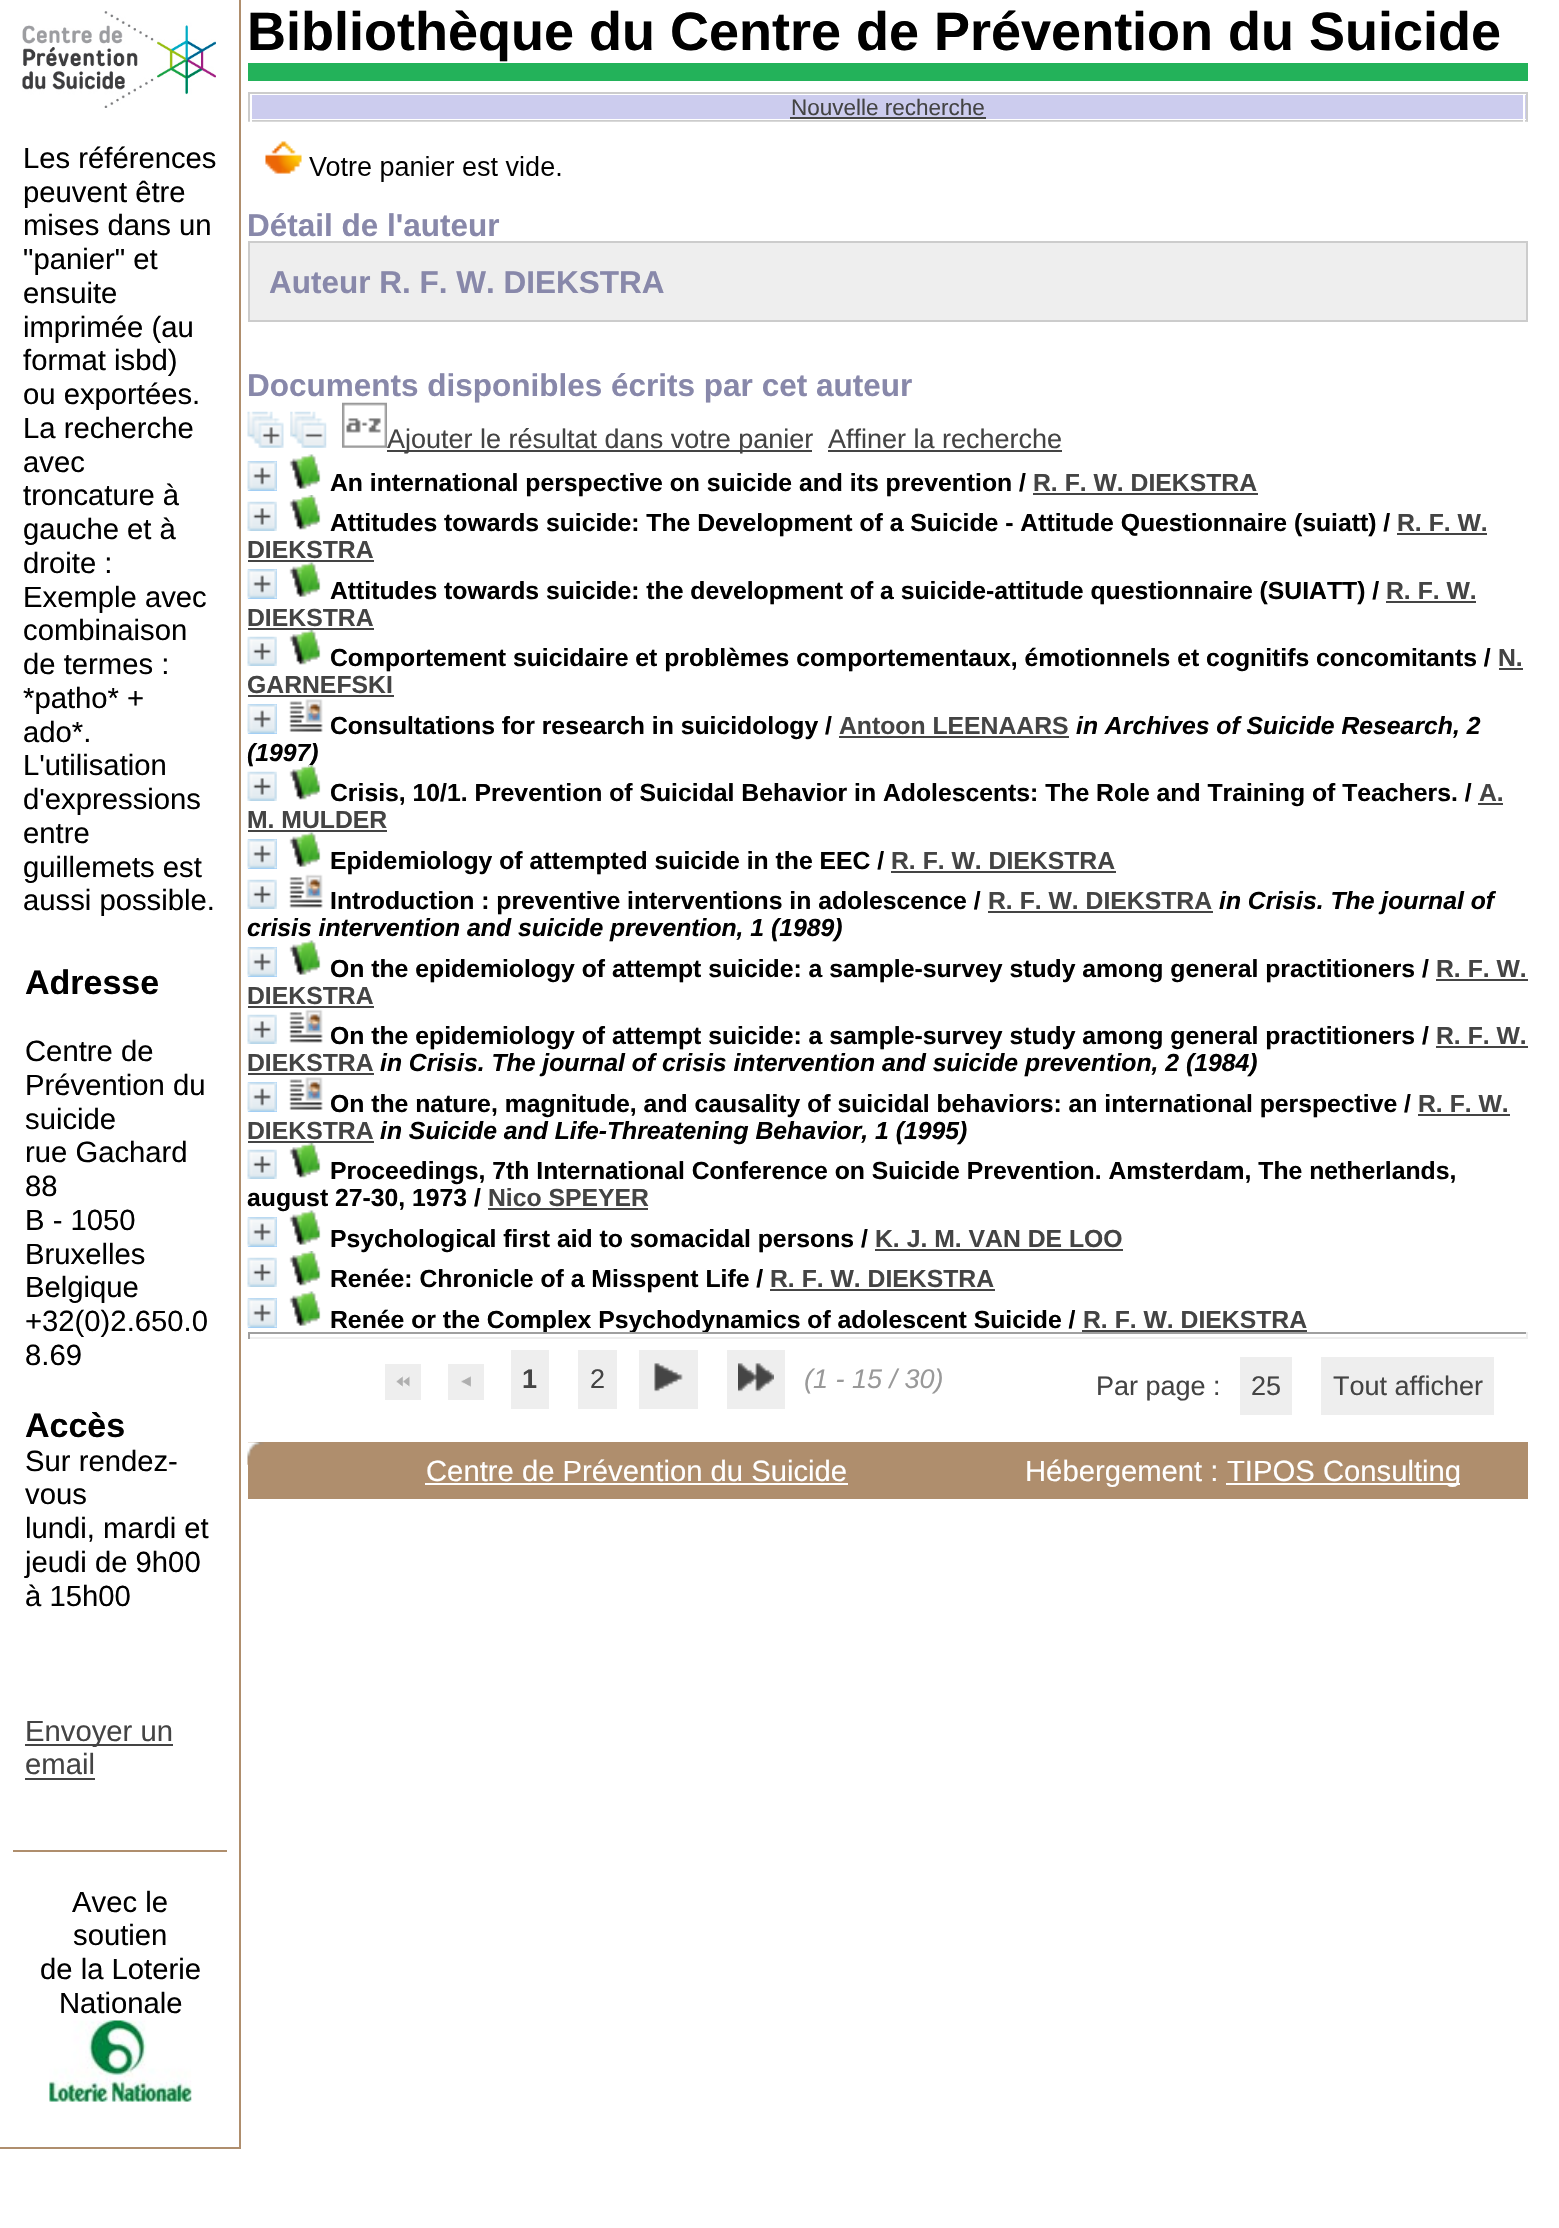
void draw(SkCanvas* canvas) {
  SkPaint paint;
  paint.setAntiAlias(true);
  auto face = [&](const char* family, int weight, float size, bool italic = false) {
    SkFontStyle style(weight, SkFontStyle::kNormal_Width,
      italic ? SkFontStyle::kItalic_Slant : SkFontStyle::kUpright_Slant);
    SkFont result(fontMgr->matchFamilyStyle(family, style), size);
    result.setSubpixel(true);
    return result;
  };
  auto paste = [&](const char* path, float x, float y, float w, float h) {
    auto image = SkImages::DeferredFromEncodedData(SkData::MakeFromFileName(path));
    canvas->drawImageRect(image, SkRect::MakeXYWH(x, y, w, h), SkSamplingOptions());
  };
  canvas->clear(0xffffffff);
  paint.setColor(0xffaf8e6d);
  canvas->drawRect(SkRect::MakeXYWH(239, 0, 2, 2149), paint);
  paste("img/1.png", 22, 11, 194, 97);
  paint.setColor(0xff23b25a);
  canvas->drawRect(SkRect::MakeXYWH(248, 63, 1280, 18), paint);
  paint.setStroke(true);
  paint.setStrokeWidth(2);
  paint.setColor(0xffcccccc);
  canvas->drawRect(SkRect::MakeXYWH(249, 93, 1278, 28), paint);
  paint.setStroke(false);
  {
    const struct { float x, y, w, h; SkColor color; } items[] = {
      {252, 95, 1274, 24, 0xffccccee},
      {1523, 95, 2, 27, 0xffffffff},
      {250, 120, 2, 2, 0xffffffff},
      {790, 117, 196, 2, 0xff444444},
    };
    for (auto [x, y, w, h, color] : items) {
      paint.setColor(color);
      canvas->drawRect(SkRect::MakeXYWH(x, y, w, h), paint);
    }
  }
  paste("img/2.png", 248, 121, 1280, 61);
  paint.setColor(0xffeeeeee);
  canvas->drawRect(SkRect::MakeXYWH(249, 242, 1278, 79), paint);
  paint.setStroke(true);
  paint.setColor(0xffcccccc);
  canvas->drawRect(SkRect::MakeXYWH(249, 242, 1278, 79), paint);
  paste("img/3.png", 247, 411, 37, 37);
  paste("img/4.png", 290, 411, 37, 37);
  paint.setStroke(false);
  {
    const struct { float x, y, w, h; SkColor color; } items[] = {
      {387, 450, 425, 2, 0xff444444},
      {828, 450, 234, 2, 0xff444444},
      {248, 461, 29, 30, 0xff8cc6ff},
    };
    for (auto [x, y, w, h, color] : items) {
      paint.setColor(color);
      canvas->drawRect(SkRect::MakeXYWH(x, y, w, h), paint);
    }
  }
  paste("img/6.png", 247, 461, 30, 30);
  paste("img/7.png", 289, 454, 32, 35);
  paint.setColor(0xff444444);
  canvas->drawRect(SkRect::MakeXYWH(1033, 493, 225, 2), paint);
  paste("img/8.png", 247, 501, 30, 30);
  paste("img/9.png", 289, 495, 32, 35);
  {
    const struct { float x, y, w, h; SkColor color; } items[] = {
      {1397, 533, 90, 2, 0xff444444},
      {248, 560, 126, 2, 0xff444444},
      {248, 569, 29, 30, 0xff8cc6ff},
    };
    for (auto [x, y, w, h, color] : items) {
      paint.setColor(color);
      canvas->drawRect(SkRect::MakeXYWH(x, y, w, h), paint);
    }
  }
  paste("img/10.png", 247, 569, 30, 30);
  paste("img/11.png", 289, 562, 32, 35);
  paint.setColor(0xff444444);
  canvas->drawRect(SkRect::MakeXYWH(1386, 601, 90, 2), paint);
  canvas->drawRect(SkRect::MakeXYWH(248, 628, 126, 2), paint);
  paste("img/8.png", 247, 636, 30, 30);
  paste("img/9.png", 289, 630, 32, 35);
  {
    const struct { float x, y, w, h; SkColor color; } items[] = {
      {1499, 668, 24, 2, 0xff444444},
      {248, 695, 146, 2, 0xff444444},
      {248, 704, 29, 30, 0xff8cc6ff},
    };
    for (auto [x, y, w, h, color] : items) {
      paint.setColor(color);
      canvas->drawRect(SkRect::MakeXYWH(x, y, w, h), paint);
    }
  }
  paste("img/6.png", 247, 704, 30, 30);
  paste("img/12.png", 289, 699, 34, 33);
  paint.setColor(0xff444444);
  canvas->drawRect(SkRect::MakeXYWH(839, 736, 230, 2), paint);
  paste("img/13.png", 247, 771, 30, 30);
  {
    const struct { float x, y, w, h; SkColor color; } items[] = {
      {1478, 803, 25, 2, 0xff444444},
      {248, 830, 139, 2, 0xff444444},
      {248, 839, 29, 30, 0xff8cc6ff},
    };
    for (auto [x, y, w, h, color] : items) {
      paint.setColor(color);
      canvas->drawRect(SkRect::MakeXYWH(x, y, w, h), paint);
    }
  }
  paste("img/6.png", 247, 839, 30, 30);
  paste("img/15.png", 289, 832, 32, 35);
  paint.setColor(0xff444444);
  canvas->drawRect(SkRect::MakeXYWH(891, 871, 225, 2), paint);
  paste("img/8.png", 247, 879, 30, 30);
  paste("img/16.png", 289, 874, 34, 34);
  canvas->drawRect(SkRect::MakeXYWH(988, 911, 225, 2), paint);
  paint.setColor(0xff8cc6ff);
  canvas->drawRect(SkRect::MakeXYWH(248, 947, 29, 30), paint);
  paste("img/6.png", 247, 947, 30, 30);
  paint.setColor(0xff444444);
  canvas->drawRect(SkRect::MakeXYWH(1436, 979, 92, 2), paint);
  canvas->drawRect(SkRect::MakeXYWH(248, 1006, 126, 2), paint);
  paste("img/8.png", 247, 1014, 30, 30);
  paste("img/16.png", 289, 1009, 34, 34);
  {
    const struct { float x, y, w, h; SkColor color; } items[] = {
      {1436, 1046, 92, 2, 0xff444444},
      {248, 1073, 126, 2, 0xff444444},
      {248, 1082, 29, 30, 0xff8cc6ff},
    };
    for (auto [x, y, w, h, color] : items) {
      paint.setColor(color);
      canvas->drawRect(SkRect::MakeXYWH(x, y, w, h), paint);
    }
  }
  paste("img/6.png", 247, 1082, 30, 30);
  paste("img/12.png", 289, 1077, 34, 33);
  paint.setColor(0xff444444);
  canvas->drawRect(SkRect::MakeXYWH(1418, 1114, 92, 2), paint);
  canvas->drawRect(SkRect::MakeXYWH(248, 1141, 126, 2), paint);
  paste("img/17.png", 247, 1149, 30, 30);
  paste("img/18.png", 289, 1143, 32, 35);
  canvas->drawRect(SkRect::MakeXYWH(488, 1208, 160, 2), paint);
  paint.setColor(0xff8cc6ff);
  canvas->drawRect(SkRect::MakeXYWH(248, 1217, 29, 30), paint);
  paste("img/6.png", 247, 1217, 30, 30);
  paint.setColor(0xff444444);
  canvas->drawRect(SkRect::MakeXYWH(875, 1249, 248, 2), paint);
  paste("img/8.png", 247, 1257, 30, 30);
  paste("img/9.png", 289, 1251, 32, 35);
  canvas->drawRect(SkRect::MakeXYWH(770, 1289, 225, 2), paint);
  paint.setColor(0xff8cc6ff);
  canvas->drawRect(SkRect::MakeXYWH(248, 1298, 29, 30), paint);
  paste("img/6.png", 247, 1298, 30, 30);
  paste("img/7.png", 289, 1291, 32, 35);
  paint.setColor(0xff444444);
  canvas->drawRect(SkRect::MakeXYWH(1082, 1330, 225, 2), paint);
  paint.setColor(0xffeeeeee);
  canvas->drawRect(SkRect::MakeXYWH(385, 1364, 36, 36), paint);
  paste("img/19.png", 396, 1376, 14, 11);
  canvas->drawRect(SkRect::MakeXYWH(448, 1364, 36, 36), paint);
  paste("img/20.png", 461, 1376, 10, 11);
  {
    const struct { float x, y, w, h; SkColor color; } items[] = {
      {511, 1350, 38, 59, 0xffeeeeee},
      {578, 1350, 39, 59, 0xffeeeeee},
      {639, 1350, 59, 59, 0xffeeeeee},
    };
    for (auto [x, y, w, h, color] : items) {
      paint.setColor(color);
      canvas->drawRect(SkRect::MakeXYWH(x, y, w, h), paint);
    }
  }
  paste("img/21.png", 654, 1363, 29, 29);
  canvas->drawRect(SkRect::MakeXYWH(727, 1350, 58, 59), paint);
  paste("img/22.png", 738, 1363, 36, 29);
  {
    const struct { float x, y, w, h; SkColor color; } items[] = {
      {1240, 1357, 52, 58, 0xffeeeeee},
      {1321, 1357, 173, 58, 0xffeeeeee},
      {248, 1442, 1280, 57, 0xffaf8e6d},
    };
    for (auto [x, y, w, h, color] : items) {
      paint.setColor(color);
      canvas->drawRect(SkRect::MakeXYWH(x, y, w, h), paint);
    }
  }
  paste("img/23.png", 247, 1442, 17, 23);
  {
    const struct { float x, y, w, h; SkColor color; } items[] = {
      {425, 1483, 423, 2, 0xffffffff},
      {1226, 1483, 234, 2, 0xffffffff},
      {0, 2147, 241, 2, 0xffaf8e6d},
      {25, 1744, 148, 2, 0xff444444},
      {25, 1778, 70, 2, 0xff444444},
      {11, 1850, 216, 2, 0xffaf8e6d},
      {11, 1850, 2, 2, 0xffffffff},
    };
    for (auto [x, y, w, h, color] : items) {
      paint.setColor(color);
      canvas->drawRect(SkRect::MakeXYWH(x, y, w, h), paint);
    }
  }
  paste("img/24.png", 49, 2020, 143, 82);
  auto f0 = face("Liberation Sans", 400, 29.25f);
  paint.setColor(0xff000000);
  {
    const struct { const char* s; float x, y; } items[] = {
      {"Les références", 23, 168},
      {"peuvent être", 23, 202},
      {"mises dans un", 23, 235},
      {"\"panier\" et", 23, 269},
      {"ensuite", 23, 303},
      {"imprimée (au", 23, 337},
      {"format isbd)", 23, 370},
      {"ou exportées.", 23, 404},
      {"La recherche", 23, 438},
      {"avec", 23, 472},
      {"troncature à", 23, 505},
      {"gauche et à", 23, 539},
      {"droite :", 23, 573},
      {"Exemple avec", 23, 607},
      {"combinaison", 23, 640},
      {"de termes :", 23, 674},
      {"*patho* +", 23, 708},
      {"ado*.", 23, 742},
      {"L'utilisation", 23, 775},
      {"d'expressions", 23, 809},
      {"entre", 23, 843},
      {"guillemets est", 23, 877},
      {"aussi possible.", 23, 910},
    };
    for (auto [s, x, y] : items) {
      canvas->drawString(s, x, y, f0, paint);
    }
  }
  auto f1 = face("Liberation Sans", 700, 54);
  canvas->drawString("Bibliothèque du Centre de Prévention du Suicide", 247, 50, f1, paint);
  auto f2 = face("Liberation Sans", 400, 22.5f);
  paint.setColor(0xff444444);
  canvas->drawString("Nouvelle recherche", 791, 115, f2, paint);
  auto f3 = face("Liberation Sans", 700, 31.5f);
  paint.setColor(0xff8888aa);
  {
    const struct { const char* s; float x, y; } items[] = {
      {"Détail de l'auteur", 247, 236},
      {"Auteur R. F. W. DIEKSTRA", 269, 293},
      {"Documents disponibles écrits par cet auteur", 247, 396},
    };
    for (auto [s, x, y] : items) {
      canvas->drawString(s, x, y, f3, paint);
    }
  }
  paste("img/5.png", 342, 402, 45, 46);
  auto f4 = face("Liberation Sans", 400, 27);
  paint.setColor(0xff444444);
  canvas->drawString("Ajouter le résultat dans votre panier", 387, 448, f4, paint);
  canvas->drawString("Affiner la recherche", 828, 448, f4, paint);
  auto f5 = face("Liberation Sans", 700, 24.75f);
  paint.setColor(0xff000000);
  canvas->drawString("An international perspective on suicide and its prevention /", 330, 491, f5, paint);
  paint.setColor(0xff444444);
  canvas->drawString("R. F. W. DIEKSTRA", 1033, 491, f5, paint);
  paint.setColor(0xff000000);
  canvas->drawString("Attitudes towards suicide: The Development of a Suicide - Attitude Questionnaire (suiatt) /", 330, 531, f5, paint);
  paint.setColor(0xff444444);
  canvas->drawString("R. F. W.", 1397, 531, f5, paint);
  canvas->drawString("DIEKSTRA", 247, 558, f5, paint);
  paint.setColor(0xff000000);
  canvas->drawString("Attitudes towards suicide: the development of a suicide-attitude questionnaire (SUIATT) /", 330, 599, f5, paint);
  paint.setColor(0xff444444);
  canvas->drawString("R. F. W.", 1386, 599, f5, paint);
  canvas->drawString("DIEKSTRA", 247, 626, f5, paint);
  paint.setColor(0xff000000);
  canvas->drawString("Comportement suicidaire et problèmes comportementaux, émotionnels et cognitifs concomitants /", 330, 666, f5, paint);
  paint.setColor(0xff444444);
  canvas->drawString("N.", 1498, 666, f5, paint);
  canvas->drawString("GARNEFSKI", 247, 693, f5, paint);
  paint.setColor(0xff000000);
  canvas->drawString("Consultations for research in suicidology /", 330, 734, f5, paint);
  paint.setColor(0xff444444);
  canvas->drawString("Antoon LEENAARS", 839, 734, f5, paint);
  auto f6 = face("Liberation Sans", 700, 24.75f, true);
  paint.setColor(0xff000000);
  canvas->drawString("in Archives of Suicide Research, 2", 1076, 734, f6, paint);
  canvas->drawString("(1997)", 247, 761, f6, paint);
  paste("img/14.png", 289, 765, 32, 35);
  canvas->drawString("Crisis, 10/1. Prevention of Suicidal Behavior in Adolescents: The Role and Training of Teachers. /", 330, 801, f5, paint);
  paint.setColor(0xff444444);
  canvas->drawString("A.", 1479, 801, f5, paint);
  canvas->drawString("M. MULDER", 247, 828, f5, paint);
  paint.setColor(0xff000000);
  canvas->drawString("Epidemiology of attempted suicide in the EEC /", 330, 869, f5, paint);
  paint.setColor(0xff444444);
  canvas->drawString("R. F. W. DIEKSTRA", 891, 869, f5, paint);
  paint.setColor(0xff000000);
  canvas->drawString("Introduction : preventive interventions in adolescence /", 330, 909, f5, paint);
  paint.setColor(0xff444444);
  canvas->drawString("R. F. W. DIEKSTRA", 988, 909, f5, paint);
  paint.setColor(0xff000000);
  canvas->drawString("in Crisis. The journal of", 1219, 909, f6, paint);
  canvas->drawString("crisis intervention and suicide prevention, 1 (1989)", 247, 936, f6, paint);
  paste("img/7.png", 289, 940, 32, 35);
  canvas->drawString("On the epidemiology of attempt suicide: a sample-survey study among general practitioners /", 330, 977, f5, paint);
  paint.setColor(0xff444444);
  canvas->drawString("R. F. W.", 1436, 977, f5, paint);
  canvas->drawString("DIEKSTRA", 247, 1004, f5, paint);
  paint.setColor(0xff000000);
  canvas->drawString("On the epidemiology of attempt suicide: a sample-survey study among general practitioners /", 330, 1044, f5, paint);
  paint.setColor(0xff444444);
  canvas->drawString("R. F. W.", 1436, 1044, f5, paint);
  canvas->drawString("DIEKSTRA", 247, 1071, f5, paint);
  paint.setColor(0xff000000);
  canvas->drawString("in Crisis. The journal of crisis intervention and suicide prevention, 2 (1984)", 380, 1071, f6, paint);
  canvas->drawString("On the nature, magnitude, and causality of suicidal behaviors: an international perspective /", 330, 1112, f5, paint);
  paint.setColor(0xff444444);
  canvas->drawString("R. F. W.", 1418, 1112, f5, paint);
  canvas->drawString("DIEKSTRA", 247, 1139, f5, paint);
  paint.setColor(0xff000000);
  canvas->drawString("in Suicide and Life-Threatening Behavior, 1 (1995)", 380, 1139, f6, paint);
  canvas->drawString("Proceedings, 7th International Conference on Suicide Prevention. Amsterdam, The netherlands,", 330, 1179, f5, paint);
  canvas->drawString("august 27-30, 1973 /", 247, 1206, f5, paint);
  paint.setColor(0xff444444);
  canvas->drawString("Nico SPEYER", 488, 1206, f5, paint);
  paste("img/7.png", 289, 1210, 32, 35);
  paint.setColor(0xff000000);
  canvas->drawString("Psychological first aid to somacidal persons /", 330, 1247, f5, paint);
  paint.setColor(0xff444444);
  canvas->drawString("K. J. M. VAN DE LOO", 875, 1247, f5, paint);
  paint.setColor(0xff000000);
  canvas->drawString("Renée: Chronicle of a Misspent Life /", 330, 1287, f5, paint);
  paint.setColor(0xff444444);
  canvas->drawString("R. F. W. DIEKSTRA", 770, 1287, f5, paint);
  paint.setColor(0xff000000);
  canvas->drawString("Renée or the Complex Psychodynamics of adolescent Suicide /", 330, 1328, f5, paint);
  paint.setColor(0xff444444);
  canvas->drawString("R. F. W. DIEKSTRA", 1083, 1328, f5, paint);
  {
    const struct { float x, y, w, h; SkColor color; } items[] = {
      {248, 1332, 1280, 2, 0xff9f9f9f},
      {1526, 1332, 2, 7, 0xffeeeeee},
      {248, 1337, 1280, 2, 0xffeeeeee},
      {248, 1332, 2, 7, 0xff9f9f9f},
    };
    for (auto [x, y, w, h, color] : items) {
      paint.setColor(color);
      canvas->drawRect(SkRect::MakeXYWH(x, y, w, h), paint);
    }
  }
  auto f7 = face("Liberation Sans", 700, 27);
  paint.setColor(0xff444444);
  canvas->drawString("1", 522, 1388, f7, paint);
  canvas->drawString("2", 590, 1388, f4, paint);
  auto f8 = face("Liberation Sans", 400, 27, true);
  paint.setColor(0xff999999);
  canvas->drawString("(1 - 15 / 30)", 804, 1388, f8, paint);
  paint.setColor(0xff444444);
  {
    const struct { const char* s; float x, y; } items[] = {
      {"Par page :", 1096, 1395},
      {"25", 1251, 1395},
      {"Tout afficher", 1333, 1395},
    };
    for (auto [s, x, y] : items) {
      canvas->drawString(s, x, y, f4, paint);
    }
  }
  paint.setColor(0xffffffff);
  {
    const struct { const char* s; float x, y; } items[] = {
      {"Centre de Prévention du Suicide", 426, 1481},
      {"Hébergement :", 1025, 1481},
      {"TIPOS Consulting", 1227, 1481},
    };
    for (auto [s, x, y] : items) {
      canvas->drawString(s, x, y, f0, paint);
    }
  }
  auto f9 = face("Liberation Sans", 700, 34);
  paint.setColor(0xff000000);
  canvas->drawString("Adresse", 25, 994, f9, paint);
  {
    const struct { const char* s; float x, y; } items[] = {
      {"Centre de", 25, 1061},
      {"Prévention du", 25, 1095},
      {"suicide", 25, 1129},
      {"rue Gachard", 25, 1162},
      {"88", 25, 1196},
      {"B - 1050", 25, 1230},
      {"Bruxelles", 25, 1264},
      {"Belgique", 25, 1297},
      {"+32(0)2.650.0", 25, 1331},
      {"8.69", 25, 1365},
    };
    for (auto [s, x, y] : items) {
      canvas->drawString(s, x, y, f0, paint);
    }
  }
  canvas->drawString("Accès", 25, 1437, f9, paint);
  {
    const struct { const char* s; float x, y; } items[] = {
      {"Sur rendez-", 25, 1471},
      {"vous", 25, 1504},
      {"lundi, mardi et", 25, 1538},
      {"jeudi de 9h00", 25, 1572},
      {"à 15h00", 25, 1606},
    };
    for (auto [s, x, y] : items) {
      canvas->drawString(s, x, y, f0, paint);
    }
  }
  paint.setColor(0xff444444);
  canvas->drawString("Envoyer un", 25, 1741, f0, paint);
  canvas->drawString("email", 25, 1774, f0, paint);
  paint.setColor(0xff000000);
  {
    const struct { const char* s; float x, y; } items[] = {
      {"Avec le", 72, 1912},
      {"soutien", 73, 1945},
      {"de la Loterie", 40, 1979},
      {"Nationale", 59, 2013},
    };
    for (auto [s, x, y] : items) {
      canvas->drawString(s, x, y, f0, paint);
    }
  }
}
